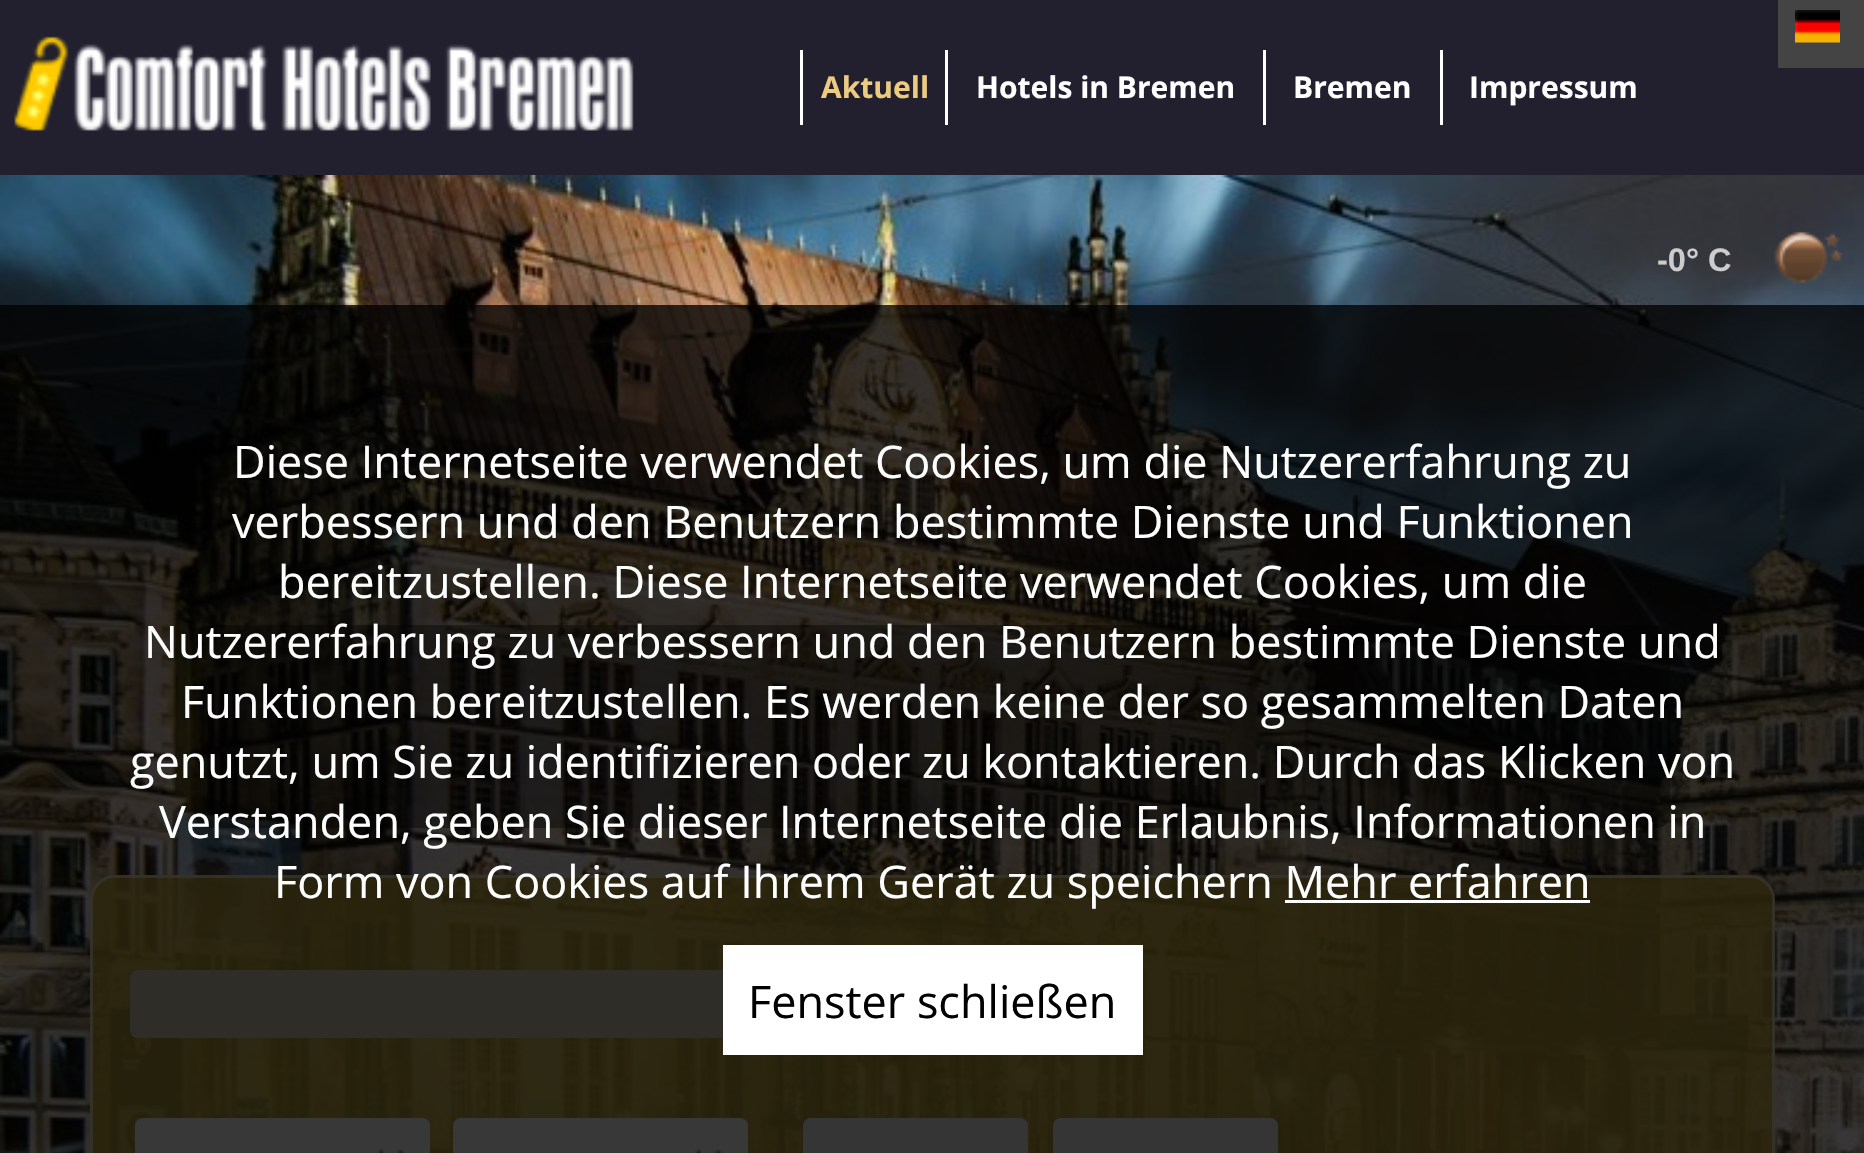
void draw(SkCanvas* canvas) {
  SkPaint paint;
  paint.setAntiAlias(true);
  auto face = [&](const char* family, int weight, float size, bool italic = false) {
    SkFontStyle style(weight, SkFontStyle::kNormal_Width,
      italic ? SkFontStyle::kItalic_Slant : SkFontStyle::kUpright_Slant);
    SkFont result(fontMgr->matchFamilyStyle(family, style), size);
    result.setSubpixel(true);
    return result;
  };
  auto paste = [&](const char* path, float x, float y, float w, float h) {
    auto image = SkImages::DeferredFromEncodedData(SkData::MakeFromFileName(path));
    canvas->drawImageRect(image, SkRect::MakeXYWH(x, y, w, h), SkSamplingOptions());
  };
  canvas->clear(0xff22202f);
  paste("img/1.png", 0, 175, 1864, 978);
  paste("img/2.png", 14, 36, 620, 95);
  {
    const struct { float x, y, w, h; SkColor color; } items[] = {
      {800, 50, 3, 75, 0xffffffff},
      {945, 50, 3, 75, 0xffffffff},
      {1263, 50, 3, 75, 0xffffffff},
      {1440, 50, 3, 75, 0xffffffff},
      {1778, 0, 86, 68, 0xff444444},
    };
    for (auto [x, y, w, h, color] : items) {
      paint.setColor(color);
      canvas->drawRect(SkRect::MakeXYWH(x, y, w, h), paint);
    }
  }
  paste("img/3.png", 1795, 10, 45, 33);
  paste("img/4.png", 1774, 231, 69, 53);
  paint.setColor(0x66000000);
  canvas->drawRoundRect(SkRect::MakeXYWH(195, 625, 1475, 203), 13, 13, paint);
  paint.setColor(0xd4c5aa35);
  canvas->drawRoundRect(SkRect::MakeXYWH(90, 875, 1685, 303), 25, 25, paint);
  paint.setStroke(true);
  paint.setStrokeWidth(3);
  paint.setColor(0x99ffffff);
  canvas->drawRoundRect(SkRect::MakeXYWH(91.5f, 876.5f, 1682, 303), 23.5f, 23.5f, paint);
  paint.setStroke(false);
  paint.setColor(0xffd5cdb0);
  canvas->drawRoundRect(SkRect::MakeXYWH(130, 970, 675, 68), 8, 8, paint);
  paint.setColor(0xffffffff);
  canvas->drawRoundRect(SkRect::MakeXYWH(135, 1118, 295, 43), 8, 8, paint);
  paste("img/5.png", 376, 1149, 30, 4);
  canvas->drawRoundRect(SkRect::MakeXYWH(453, 1118, 295, 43), 8, 8, paint);
  paste("img/6.png", 694, 1149, 29, 4);
  paint.setColor(0xffefefef);
  canvas->drawRoundRect(SkRect::MakeXYWH(803, 1118, 225, 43), 8, 8, paint);
  canvas->drawRoundRect(SkRect::MakeXYWH(1053, 1118, 225, 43), 8, 8, paint);
  {
    const struct { float x, y, w, h; SkColor color; } items[] = {
      {0, 305, 1864, 848, 0xc7000000},
      {1285, 900, 305, 3, 0xffffffff},
      {723, 945, 420, 110, 0xffffffff},
    };
    for (auto [x, y, w, h, color] : items) {
      paint.setColor(color);
      canvas->drawRect(SkRect::MakeXYWH(x, y, w, h), paint);
    }
  }
  auto f0 = face("Open Sans", 700, 30);
  paint.setColor(0xffecca80);
  canvas->drawString("Aktuell", 821, 98, f0, paint);
  paint.setColor(0xffffffff);
  {
    const struct { const char* s; float x, y; } items[] = {
      {"Hotels in Bremen", 976, 98},
      {"Bremen", 1293, 98},
      {"Impressum", 1469, 98},
    };
    for (auto [s, x, y] : items) {
      canvas->drawString(s, x, y, f0, paint);
    }
  }
  auto f1 = face("Liberation Sans", 700, 32.5f);
  paint.setColor(0xffcccccc);
  canvas->drawString("-0° C", 1657, 271, f1, paint);
  auto f2 = face("Open Sans", 400, 45);
  paint.setColor(0xffffffff);
  {
    const struct { const char* s; float x, y; } items[] = {
      {"Diese Internetseite verwendet Cookies, um die Nutzererfahrung zu", 233, 478},
      {"verbessern und den Benutzern bestimmte Dienste und Funktionen", 232, 538},
      {"bereitzustellen. Diese Internetseite verwendet Cookies, um die", 278, 598},
      {"Nutzererfahrung zu verbessern und den Benutzern bestimmte Dienste und", 144, 658},
      {"Funktionen bereitzustellen. Es werden keine der so gesammelten Daten", 181, 718},
      {"genutzt, um Sie zu identifizieren oder zu kontaktieren. Durch das Klicken von", 130, 778},
      {"Verstanden, geben Sie dieser Internetseite die Erlaubnis, Informationen in", 159, 838},
      {"Form von Cookies auf Ihrem Gerät zu speichern Mehr erfahren", 274, 898},
    };
    for (auto [s, x, y] : items) {
      canvas->drawString(s, x, y, f2, paint);
    }
  }
  paint.setColor(0xff000000);
  canvas->drawString("Fenster schließen", 748, 1018, f2, paint);
}
